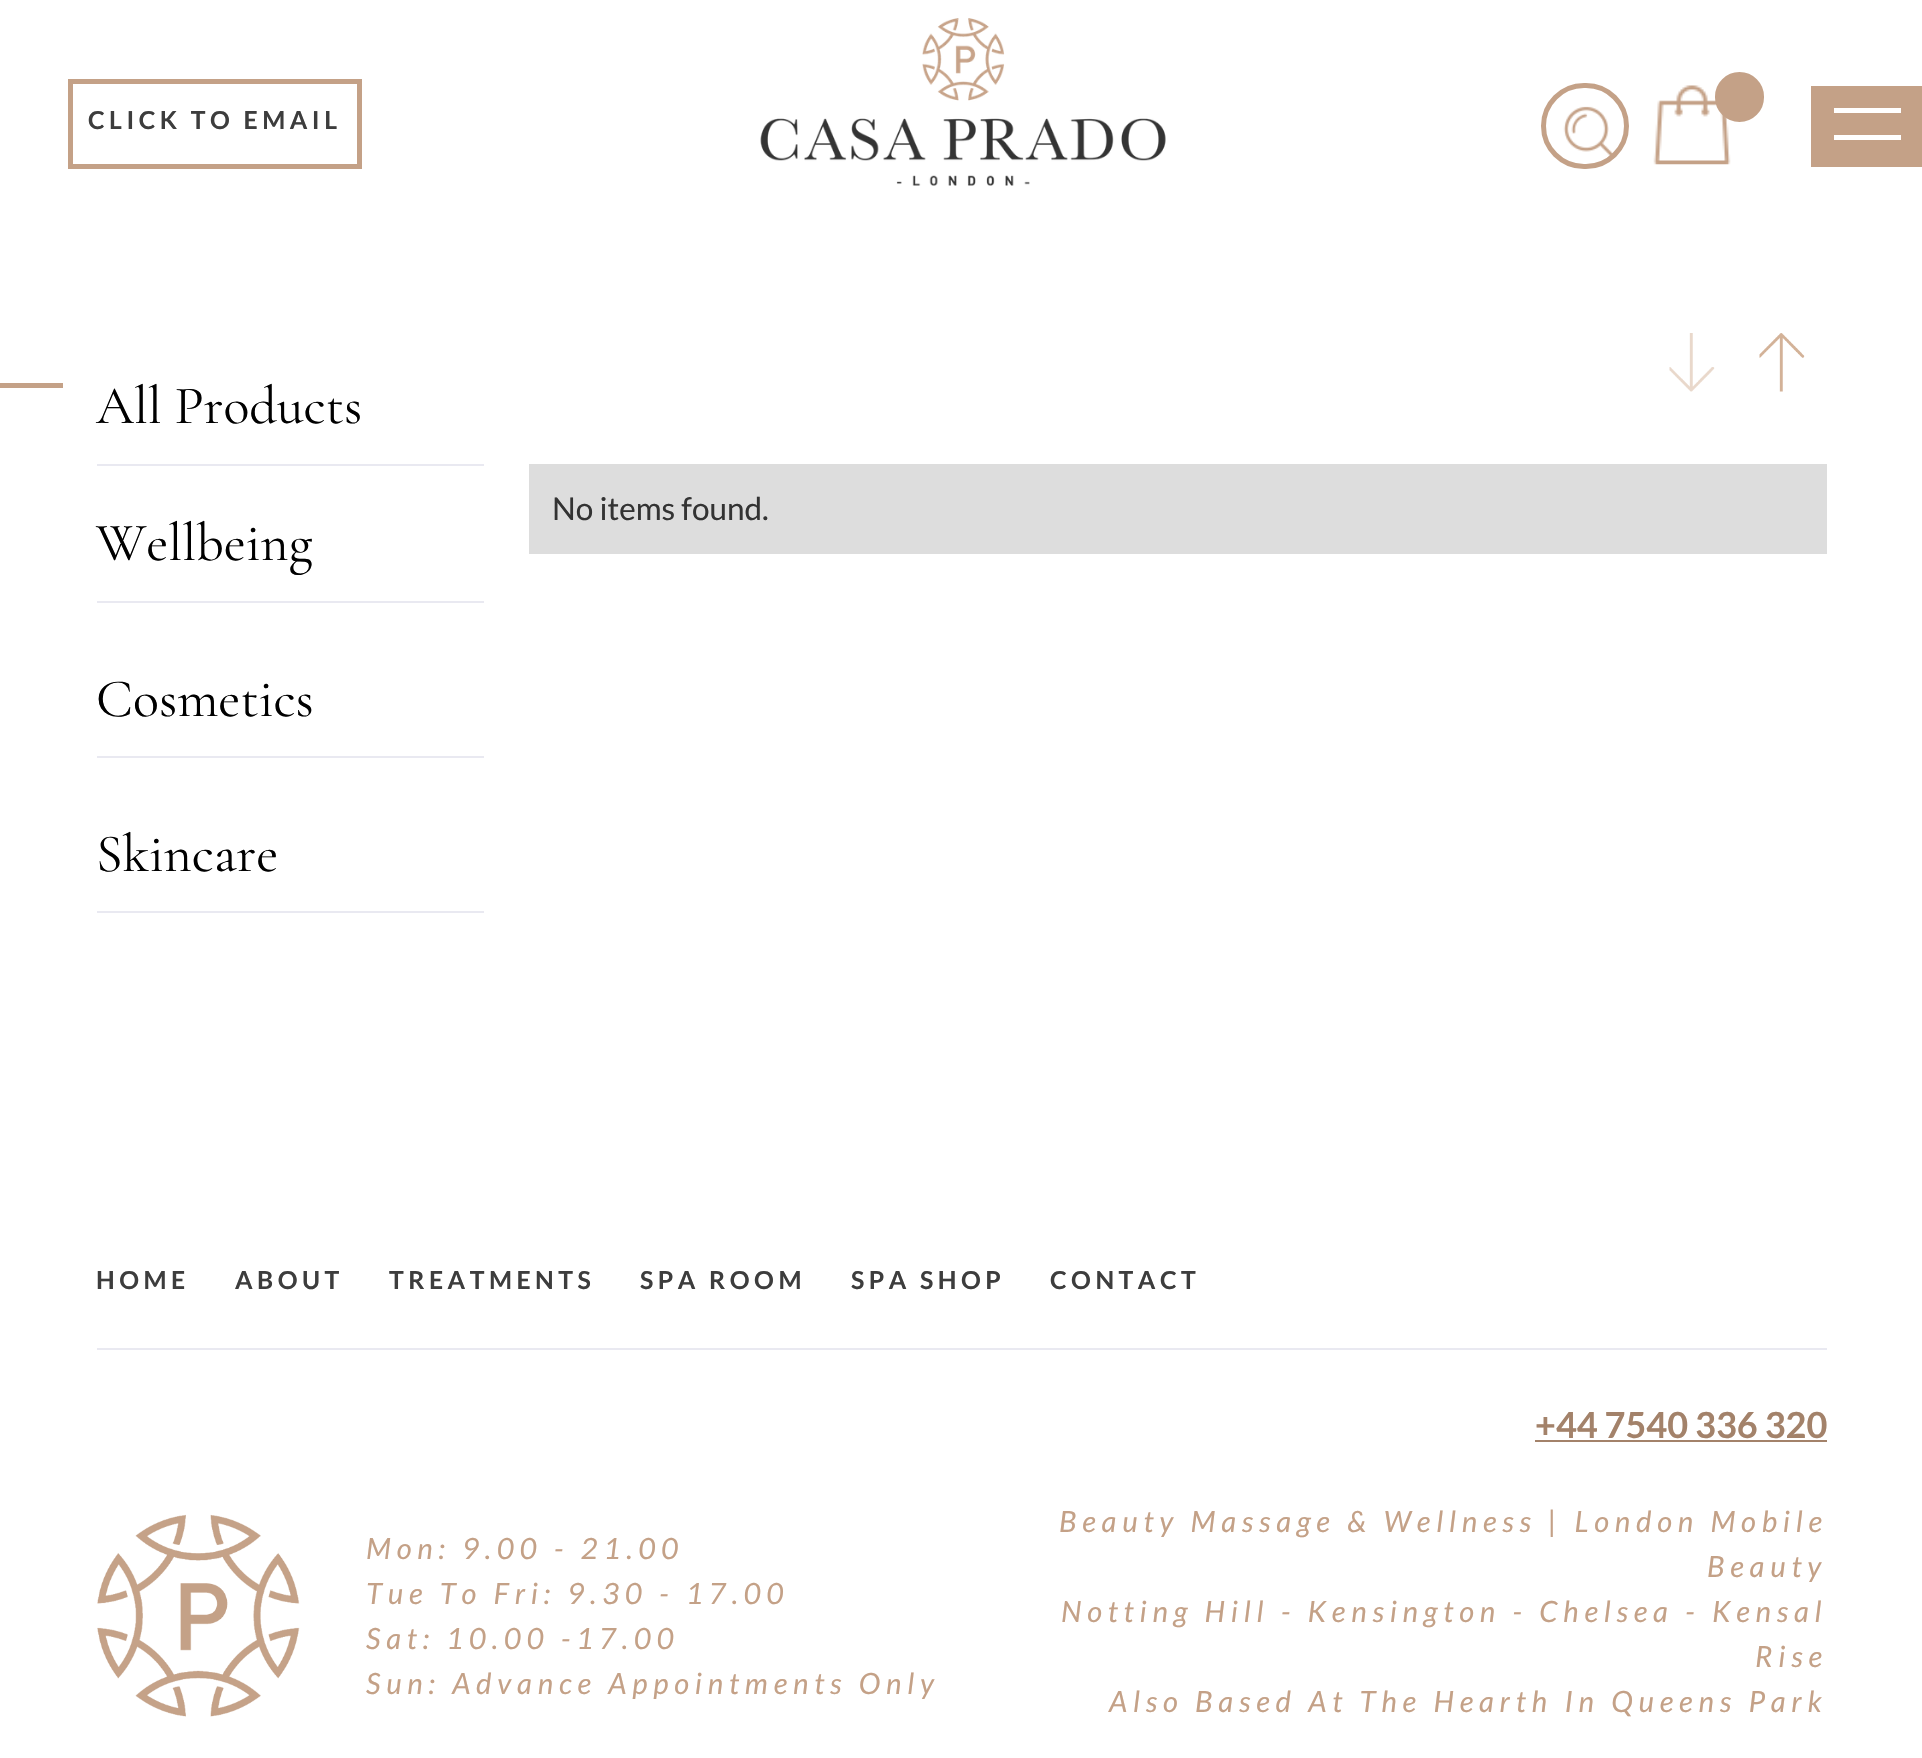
void draw(SkCanvas* canvas) {
  SkPaint paint;
  paint.setAntiAlias(true);
  auto face = [&](const char* family, int weight, float size, bool italic = false) {
    SkFontStyle style(weight, SkFontStyle::kNormal_Width,
      italic ? SkFontStyle::kItalic_Slant : SkFontStyle::kUpright_Slant);
    SkFont result(fontMgr->matchFamilyStyle(family, style), size);
    result.setSubpixel(true);
    return result;
  };
  auto writeSpaced = [&](const char* s, float x, float y, const SkFont& font, const SkPaint& ink, float letter, float word) {
    std::vector<SkGlyphID> glyphs(font.countText(s, strlen(s), SkTextEncoding::kUTF8));
    std::vector<float> xs(glyphs.size());
    font.textToGlyphs(s, strlen(s), SkTextEncoding::kUTF8, glyphs);
    font.getXPos(glyphs, xs, x);
    float extra = 0;
    for (size_t i = 0; i < glyphs.size(); i++) {
      xs[i] += extra;
      extra += letter + word * (glyphs[i] == font.unicharToGlyph(' '));
    }
    canvas->drawTextBlob(SkTextBlob::MakeFromPosHGlyphs(glyphs, xs, y, font), 0, 0, ink);
  };
  auto paste = [&](const char* path, float x, float y, float w, float h) {
    auto image = SkImages::DeferredFromEncodedData(SkData::MakeFromFileName(path));
    canvas->drawImageRect(image, SkRect::MakeXYWH(x, y, w, h), SkSamplingOptions());
  };
  canvas->clear(0xffffffff);
  paint.setStroke(true);
  paint.setStrokeWidth(5);
  paint.setColor(0xffc4a187);
  canvas->drawRect(SkRect::MakeXYWH(70.5f, 81.5f, 289, 85), paint);
  paste("img/1.png", 760, 18, 406, 168);
  paste("img/2.png", 1563, 106, 54, 54);
  canvas->drawRoundRect(SkRect::MakeXYWH(1543.5f, 85.5f, 83, 81), 40.5f, 40.5f, paint);
  paste("img/3.png", 1653, 85, 78, 80);
  paint.setStroke(false);
  canvas->drawRoundRect(SkRect::MakeXYWH(1716, 73, 47, 48), 23.5f, 23.5f, paint);
  paint.setStroke(true);
  paint.setStrokeWidth(2);
  canvas->drawRoundRect(SkRect::MakeXYWH(1716, 73, 47, 48), 23.5f, 23.5f, paint);
  paint.setStroke(false);
  {
    const struct { float x, y, w, h; SkColor color; } items[] = {
      {1811, 86, 111, 81, 0xffc4a187},
      {1834, 108, 67, 5, 0xffffffff},
      {1834, 135, 67, 5, 0xffffffff},
      {0, 383, 63, 5, 0xffc4a187},
      {97, 464, 387, 2, 0xffe9e9f1},
      {97, 601, 387, 2, 0xffe9e9f1},
      {97, 756, 387, 2, 0xffe9e9f1},
      {97, 911, 387, 2, 0xffe9e9f1},
    };
    for (auto [x, y, w, h, color] : items) {
      paint.setColor(color);
      canvas->drawRect(SkRect::MakeXYWH(x, y, w, h), paint);
    }
  }
  paste("img/4.png", 1669, 333, 46, 59);
  paste("img/5.png", 1759, 333, 46, 59);
  paint.setColor(0xffdddddd);
  canvas->drawRect(SkRect::MakeXYWH(529, 464, 1298, 90), paint);
  paint.setColor(0xffe9e9f1);
  canvas->drawRect(SkRect::MakeXYWH(97, 1348, 1730, 2), paint);
  paste("img/6.png", 97, 1514, 203, 203);
  paint.setColor(0xffa3826a);
  canvas->drawRect(SkRect::MakeXYWH(1535, 1440, 292, 2), paint);
  auto f0 = face("Lato", 700, 24.75f);
  paint.setColor(0xff3d3d3d);
  writeSpaced("CLICK TO EMAIL", 88, 129, f0, paint, 4.5f, 0);
  auto f1 = face("Cormorant Garamond", 400, 54);
  paint.setColor(0xff000000);
  {
    const struct { const char* s; float x, y; } items[] = {
      {"All Products", 96, 423},
      {"Wellbeing", 96, 560},
      {"Cosmetics", 96, 716},
      {"Skincare", 96, 871},
    };
    for (auto [s, x, y] : items) {
      canvas->drawString(s, x, y, f1, paint);
    }
  }
  auto f2 = face("Lato", 400, 31.5f);
  paint.setColor(0xff333333);
  canvas->drawString("No items found.", 552, 520, f2, paint);
  paint.setColor(0xff3d3d3d);
  {
    const struct { const char* s; float x, y; } items[] = {
      {"HOME", 96, 1289},
      {"ABOUT", 235, 1289},
      {"TREATMENTS", 389, 1289},
      {"SPA ROOM", 640, 1289},
      {"SPA SHOP", 851, 1289},
      {"CONTACT", 1050, 1289},
    };
    for (auto [s, x, y] : items) {
      writeSpaced(s, x, y, f0, paint, 4.5f, 0);
    }
  }
  auto f3 = face("Lato", 400, 29.25f, true);
  paint.setColor(0xffc4a187);
  {
    const struct { const char* s; float x, y; } items[] = {
      {"Mon: 9.00 - 21.00", 366, 1559},
      {"Tue To Fri: 9.30 - 17.00", 366, 1604},
      {"Sat: 10.00 -17.00", 366, 1649},
      {"Sun: Advance Appointments Only", 366, 1694},
    };
    for (auto [s, x, y] : items) {
      writeSpaced(s, x, y, f3, paint, 5.85f, 0);
    }
  }
  auto f4 = face("Lato", 700, 36);
  paint.setColor(0xffa3826a);
  canvas->drawString("+44 7540 336 320", 1535, 1438, f4, paint);
  paint.setColor(0xffc4a187);
  {
    const struct { const char* s; float x, y; } items[] = {
      {"Beauty Massage & Wellness | London Mobile", 1059, 1532},
      {"Beauty", 1707, 1577},
      {"Notting Hill - Kensington - Chelsea - Kensal", 1061, 1622},
      {"Rise", 1755, 1667},
      {"Also Based At The Hearth In Queens Park", 1109, 1712},
    };
    for (auto [s, x, y] : items) {
      writeSpaced(s, x, y, f3, paint, 5.85f, 0);
    }
  }
}
